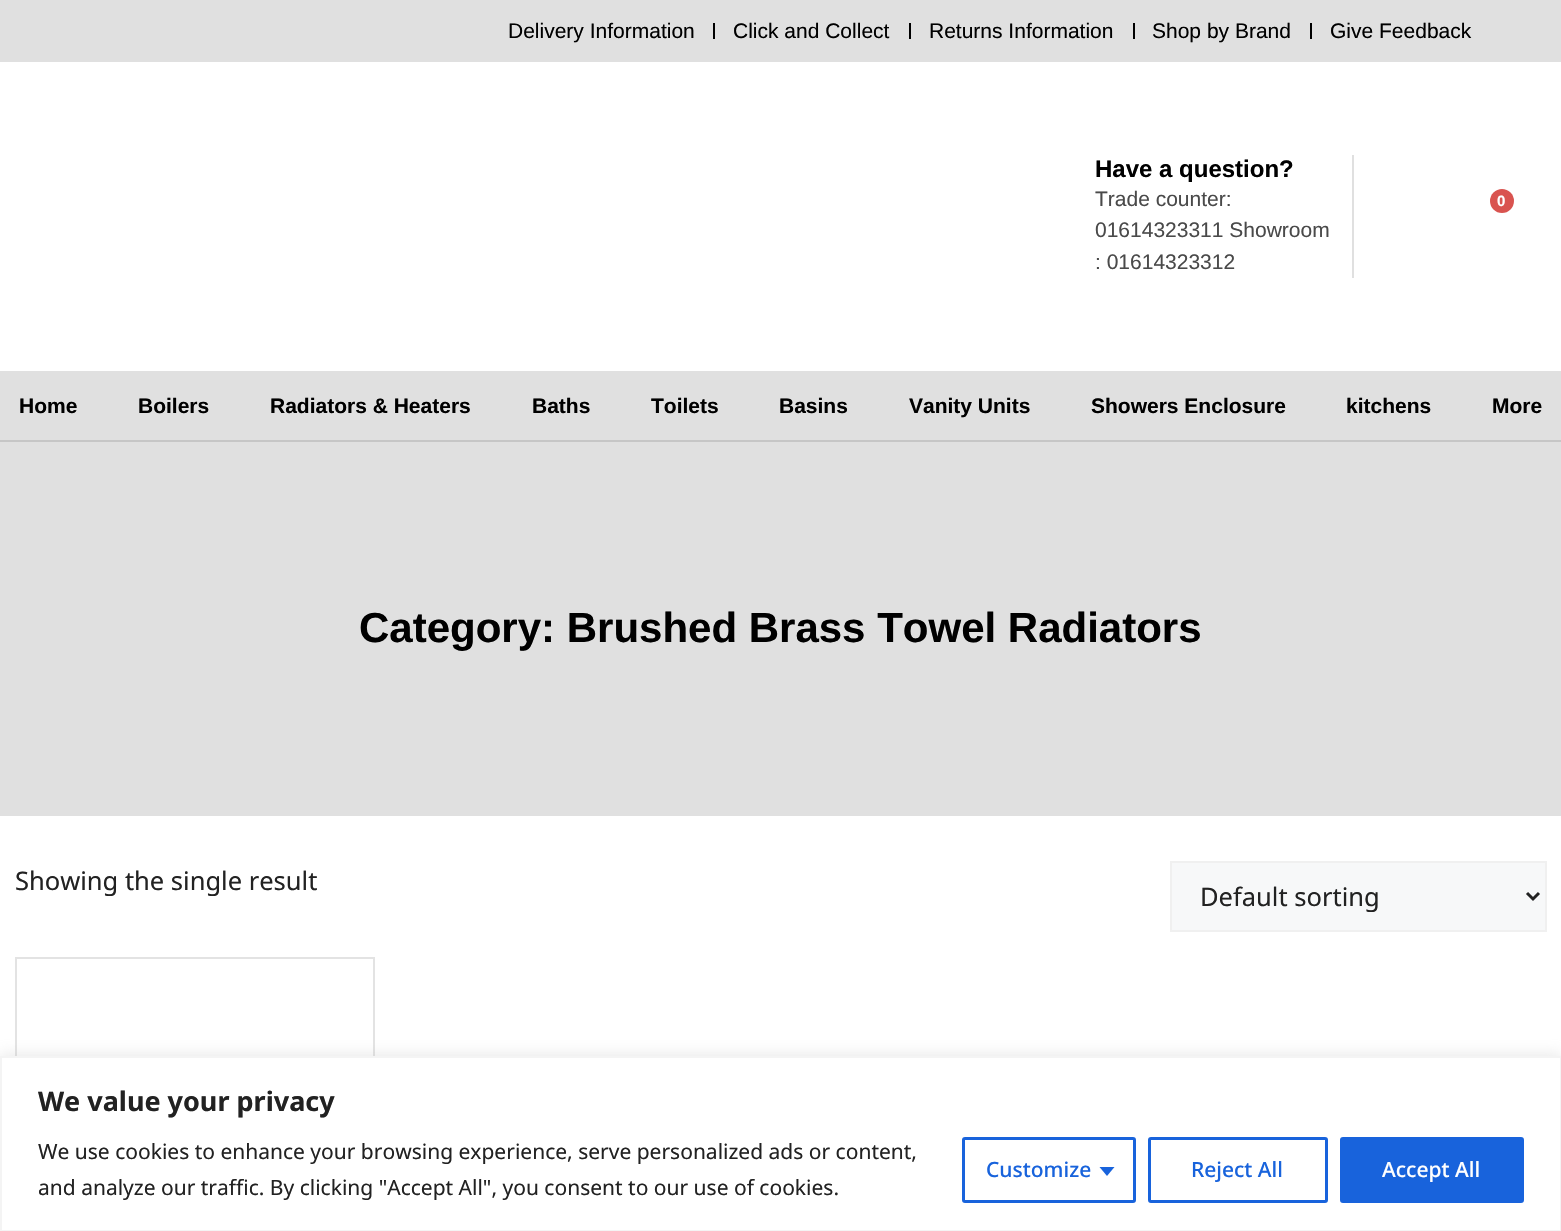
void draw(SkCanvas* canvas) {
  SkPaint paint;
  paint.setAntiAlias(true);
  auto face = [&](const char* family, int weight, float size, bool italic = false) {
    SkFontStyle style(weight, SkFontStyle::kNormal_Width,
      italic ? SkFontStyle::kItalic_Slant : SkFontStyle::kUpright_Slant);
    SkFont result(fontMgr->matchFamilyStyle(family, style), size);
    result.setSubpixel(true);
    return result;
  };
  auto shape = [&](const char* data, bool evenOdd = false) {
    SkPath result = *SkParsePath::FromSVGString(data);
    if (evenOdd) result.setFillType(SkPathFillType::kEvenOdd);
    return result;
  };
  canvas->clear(0xffffffff);
  {
    const struct { float x, y, w, h; SkColor color; } items[] = {
      {0, 0, 1561, 62, 0xffe0e0e0},
      {713, 23, 2, 16, 0xff000000},
      {909, 23, 2, 16, 0xff000000},
      {1133, 23, 2, 16, 0xff000000},
      {1310, 23, 2, 16, 0xff000000},
      {1352, 155, 2, 123, 0xffe0e0e0},
    };
    for (auto [x, y, w, h, color] : items) {
      paint.setColor(color);
      canvas->drawRect(SkRect::MakeXYWH(x, y, w, h), paint);
    }
  }
  paint.setColor(0xffd9534f);
  canvas->drawCircle(1502, 201, 12, paint);
  {
    const struct { float x, y, w, h; SkColor color; } items[] = {
      {0, 371, 1561, 69, 0xffe0e0e0},
      {0, 442, 1561, 374, 0xffe0e0e0},
      {0, 440, 1561, 2, 0xffc6c6c6},
    };
    for (auto [x, y, w, h, color] : items) {
      paint.setColor(color);
      canvas->drawRect(SkRect::MakeXYWH(x, y, w, h), paint);
    }
  }
  paint.setColor(0xfff7f8f9);
  canvas->drawRect(SkRect::MakeXYWH(1171, 862, 375, 69), paint);
  paint.setStroke(true);
  paint.setStrokeWidth(2);
  paint.setColor(0xfff0f0f0);
  canvas->drawRect(SkRect::MakeXYWH(1171, 862, 375, 69), paint);
  paint.setStrokeWidth(3);
  paint.setColor(0xff222222);
  canvas->drawPath(shape("M1527 893L1533 899L1539 893"), paint);
  paint.setStrokeWidth(2);
  paint.setColor(0xffe3e3e3);
  canvas->drawRect(SkRect::MakeXYWH(16, 958, 358, 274), paint);
  paint.setStroke(false);
  paint.setColor(0x4dacabab);
  paint.setMaskFilter(SkMaskFilter::MakeBlur(kNormal_SkBlurStyle, 7.5f));
  canvas->drawRect(SkRect::MakeXYWH(0, 1055, 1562, 175), paint);
  paint.setMaskFilter(nullptr);
  paint.setColor(0xffffffff);
  canvas->drawRect(SkRect::MakeXYWH(1, 1057, 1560, 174), paint);
  paint.setStroke(true);
  paint.setColor(0xfff4f4f4);
  canvas->drawRect(SkRect::MakeXYWH(1, 1057, 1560, 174), paint);
  paint.setStrokeWidth(3);
  paint.setColor(0xff1863dc);
  canvas->drawRoundRect(SkRect::MakeXYWH(963.5f, 1138.5f, 171, 63), 1.5f, 1.5f, paint);
  paint.setStroke(false);
  canvas->drawPath(shape("M1099.5 1167H1114.5L1107 1176Z"), paint);
  paint.setStroke(true);
  canvas->drawRoundRect(SkRect::MakeXYWH(1149.5f, 1138.5f, 177, 63), 1.5f, 1.5f, paint);
  paint.setStroke(false);
  canvas->drawRoundRect(SkRect::MakeXYWH(1341.5f, 1138.5f, 181, 63), 1.5f, 1.5f, paint);
  paint.setStroke(true);
  canvas->drawRoundRect(SkRect::MakeXYWH(1341.5f, 1138.5f, 181, 63), 1.5f, 1.5f, paint);
  auto f0 = face("Liberation Sans", 400, 21);
  paint.setStroke(false);
  paint.setColor(0xff000000);
  {
    const struct { const char* s; float x, y; } items[] = {
      {"Delivery Information", 508, 38},
      {"Click and Collect", 733, 38},
      {"Returns Information", 929, 38},
      {"Shop by Brand", 1152, 38},
      {"Give Feedback", 1330, 38},
    };
    for (auto [s, x, y] : items) {
      canvas->drawString(s, x, y, f0, paint);
    }
  }
  auto f1 = face("Liberation Sans", 700, 24);
  canvas->drawString("Have a question?", 1095, 177, f1, paint);
  paint.setColor(0xff4a4a4a);
  {
    const struct { const char* s; float x, y; } items[] = {
      {"Trade counter:", 1095, 206},
      {"01614323311 Showroom", 1095, 237},
      {": 01614323312", 1095, 269},
    };
    for (auto [s, x, y] : items) {
      canvas->drawString(s, x, y, f0, paint);
    }
  }
  auto f2 = face("Liberation Sans", 700, 15);
  paint.setColor(0xffffffff);
  canvas->drawString("0", 1497, 206, f2, paint);
  auto f3 = face("Liberation Sans", 700, 21);
  paint.setColor(0xff000000);
  {
    const struct { const char* s; float x, y; } items[] = {
      {"Home", 19, 413},
      {"Boilers", 138, 413},
      {"Radiators & Heaters", 270, 413},
      {"Baths", 532, 413},
      {"Toilets", 651, 413},
      {"Basins", 779, 413},
      {"Vanity Units", 909, 413},
      {"Showers Enclosure", 1091, 413},
      {"kitchens", 1346, 413},
      {"More", 1492, 413},
    };
    for (auto [s, x, y] : items) {
      canvas->drawString(s, x, y, f3, paint);
    }
  }
  auto f4 = face("Liberation Sans", 700, 42);
  canvas->drawString("Category: Brushed Brass Towel Radiators", 359, 642, f4, paint);
  auto f5 = face("Noto Sans", 400, 25.5f);
  paint.setColor(0xff222222);
  canvas->drawString("Showing the single result", 15, 890, f5, paint);
  canvas->drawString("Default sorting", 1200, 906, f5, paint);
  auto f6 = face("Noto Sans", 700, 27);
  canvas->drawString("We value your privacy", 38, 1111, f6, paint);
  auto f7 = face("Noto Sans", 400, 21);
  canvas->drawString("We use cookies to enhance your browsing experience, serve personalized ads or content,", 38, 1159, f7, paint);
  canvas->drawString("and analyze our traffic. By clicking \"Accept All\", you consent to our use of cookies.", 38, 1195, f7, paint);
  auto f8 = face("Noto Sans", 500, 21);
  paint.setColor(0xff1863dc);
  canvas->drawString("Customize", 986, 1177, f8, paint);
  canvas->drawString("Reject All", 1191, 1177, f8, paint);
  paint.setColor(0xffffffff);
  canvas->drawString("Accept All", 1382, 1177, f8, paint);
}
